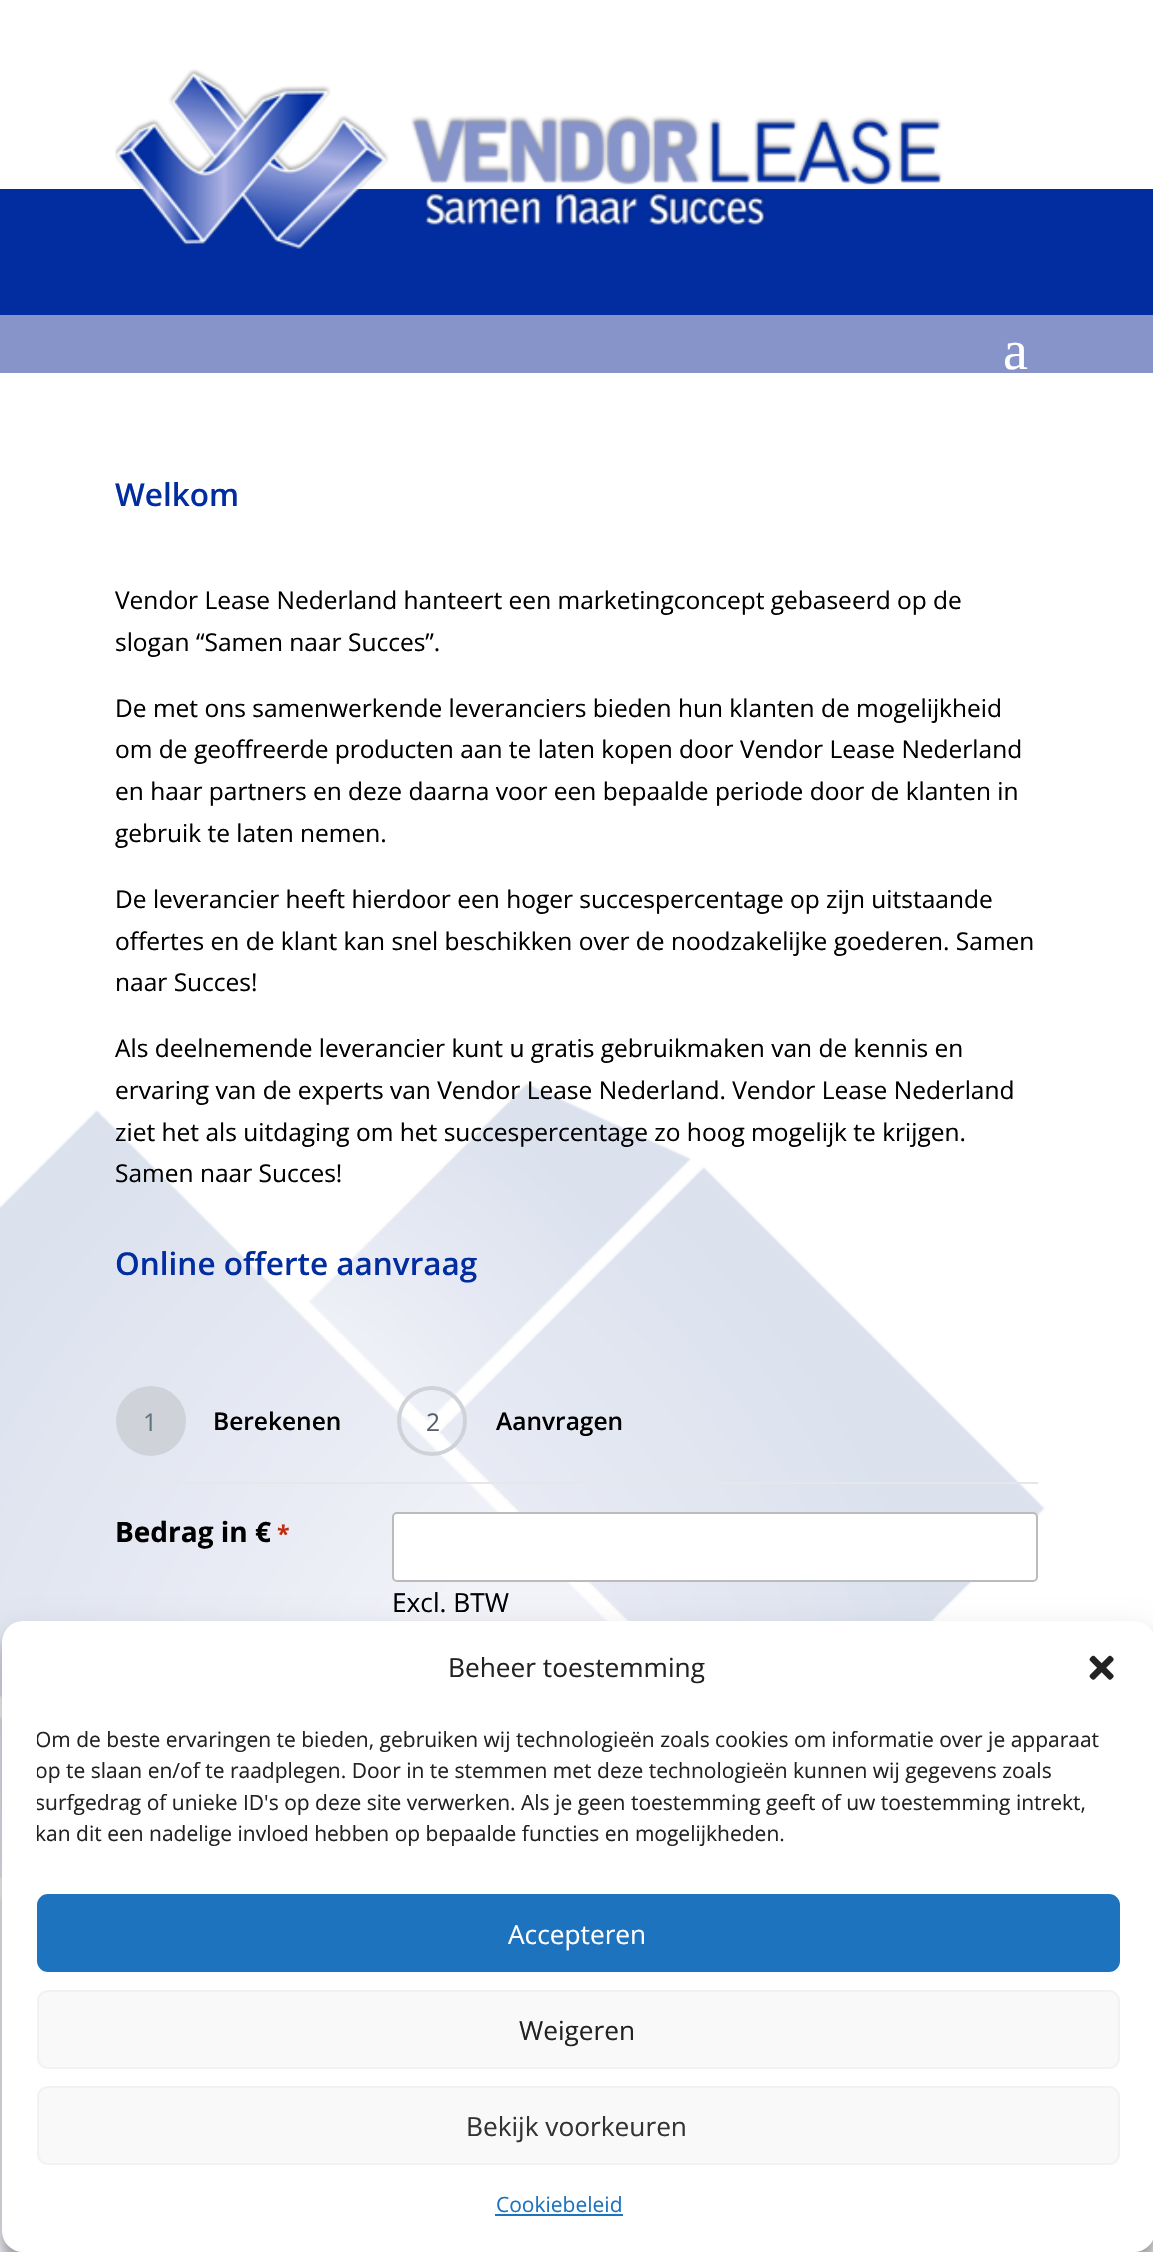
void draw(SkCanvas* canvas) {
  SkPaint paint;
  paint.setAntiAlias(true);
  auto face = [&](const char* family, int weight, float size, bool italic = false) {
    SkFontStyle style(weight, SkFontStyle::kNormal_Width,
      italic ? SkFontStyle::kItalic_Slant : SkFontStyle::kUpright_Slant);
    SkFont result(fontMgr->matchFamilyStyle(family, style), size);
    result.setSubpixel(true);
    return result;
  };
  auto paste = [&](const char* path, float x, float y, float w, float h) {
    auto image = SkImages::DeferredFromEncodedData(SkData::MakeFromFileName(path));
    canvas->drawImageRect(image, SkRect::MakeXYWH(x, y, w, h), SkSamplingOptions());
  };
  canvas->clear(0xffffffff);
  paste("img/1.png", 0, 1083, 1153, 1169);
  paint.setColor(0xff022da0);
  canvas->drawRect(SkRect::MakeXYWH(0, 189, 1153, 126), paint);
  paste("img/2.png", 115, 69, 828, 180);
  paint.setColor(0xff8694c9);
  canvas->drawRect(SkRect::MakeXYWH(0, 315, 1153, 58), paint);
  paint.setColor(0xffe5e7eb);
  canvas->drawRect(SkRect::MakeXYWH(116, 1482, 922, 2), paint);
  paint.setColor(0xffcfd3d9);
  canvas->drawCircle(151, 1421, 33, paint);
  paint.setStroke(true);
  paint.setStrokeWidth(4);
  canvas->drawCircle(151, 1421, 33, paint);
  canvas->drawCircle(432, 1421, 33, paint);
  paint.setStroke(false);
  paint.setColor(0xffffffff);
  canvas->drawRoundRect(SkRect::MakeXYWH(393, 1513, 644, 68), 4, 4, paint);
  paint.setStroke(true);
  paint.setStrokeWidth(2);
  paint.setColor(0xffbbbbbb);
  canvas->drawRoundRect(SkRect::MakeXYWH(393, 1513, 644, 68), 4, 4, paint);
  paint.setStroke(false);
  paint.setColor(0x3b000000);
  paint.setMaskFilter(SkMaskFilter::MakeBlur(kNormal_SkBlurStyle, 5));
  canvas->drawRoundRect(SkRect::MakeXYWH(2, 1631, 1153, 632), 21, 21, paint);
  paint.setMaskFilter(nullptr);
  paint.setColor(0x30000000);
  paint.setMaskFilter(SkMaskFilter::MakeBlur(kNormal_SkBlurStyle, 17.5f));
  canvas->drawRoundRect(SkRect::MakeXYWH(2, 1638, 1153, 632), 21, 21, paint);
  paint.setMaskFilter(nullptr);
  paint.setColor(0xffffffff);
  canvas->drawRoundRect(SkRect::MakeXYWH(2, 1621, 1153, 631), 21, 21, paint);
  paste("img/3.png", 1089, 1655, 25, 25);
  paint.setColor(0xff1e73be);
  canvas->drawRoundRect(SkRect::MakeXYWH(38, 1895, 1081, 76), 10, 10, paint);
  paint.setStroke(true);
  canvas->drawRoundRect(SkRect::MakeXYWH(38, 1895, 1081, 76), 10, 10, paint);
  paint.setStroke(false);
  paint.setColor(0xfff9f9f9);
  canvas->drawRoundRect(SkRect::MakeXYWH(38, 1991, 1081, 77), 10, 10, paint);
  paint.setStroke(true);
  paint.setColor(0xfff2f2f2);
  canvas->drawRoundRect(SkRect::MakeXYWH(38, 1991, 1081, 77), 10, 10, paint);
  paint.setStroke(false);
  paint.setColor(0xfff9f9f9);
  canvas->drawRoundRect(SkRect::MakeXYWH(38, 2087, 1081, 77), 10, 10, paint);
  paint.setStroke(true);
  paint.setColor(0xfff2f2f2);
  canvas->drawRoundRect(SkRect::MakeXYWH(38, 2087, 1081, 77), 10, 10, paint);
  paint.setStroke(false);
  paint.setColor(0xff1e73be);
  canvas->drawRect(SkRect::MakeXYWH(495, 2214, 128, 2), paint);
  auto f0 = face("Liberation Serif", 400, 56);
  paint.setColor(0xffffffff);
  canvas->drawString("a", 1003, 369, f0, paint);
  auto f1 = face("Open Sans", 600, 31.5f);
  paint.setColor(0xff022da0);
  canvas->drawString("Welkom", 115, 506, f1, paint);
  auto f2 = face("Open Sans", 400, 24.5f);
  paint.setColor(0xff000000);
  {
    const struct { const char* s; float x, y; } items[] = {
      {"Vendor Lease Nederland hanteert een marketingconcept gebaseerd op de", 115, 609},
      {"slogan “Samen naar Succes”.", 115, 651},
      {"De met ons samenwerkende leveranciers bieden hun klanten de mogelijkheid", 115, 717},
      {"om de geoffreerde producten aan te laten kopen door Vendor Lease Nederland", 115, 758},
      {"en haar partners en deze daarna voor een bepaalde periode door de klanten in", 115, 800},
      {"gebruik te laten nemen.", 115, 842},
      {"De leverancier heeft hierdoor een hoger succespercentage op zijn uitstaande", 115, 908},
      {"offertes en de klant kan snel beschikken over de noodzakelijke goederen. Samen", 115, 950},
      {"naar Succes!", 115, 991},
      {"Als deelnemende leverancier kunt u gratis gebruikmaken van de kennis en", 115, 1057},
      {"ervaring van de experts van Vendor Lease Nederland. Vendor Lease Nederland", 115, 1099},
      {"ziet het als uitdaging om het succespercentage zo hoog mogelijk te krijgen.", 115, 1141},
      {"Samen naar Succes!", 115, 1182},
    };
    for (auto [s, x, y] : items) {
      canvas->drawString(s, x, y, f2, paint);
    }
  }
  paint.setColor(0xff022da0);
  canvas->drawString("Online offerte aanvraag", 115, 1275, f1, paint);
  paint.setColor(0xff607382);
  canvas->drawString("1", 143, 1431, f2, paint);
  auto f3 = face("Open Sans", 600, 24.5f);
  paint.setColor(0xff000000);
  canvas->drawString("Berekenen", 213, 1430, f3, paint);
  paint.setColor(0xff585e6a);
  canvas->drawString("2", 426, 1431, f2, paint);
  paint.setColor(0xff000000);
  canvas->drawString("Aanvragen", 496, 1430, f3, paint);
  auto f4 = face("Open Sans", 700, 28);
  canvas->drawString("Bedrag in €", 115, 1542, f4, paint);
  auto f5 = face("Open Sans", 700, 23);
  paint.setColor(0xffc02b0a);
  canvas->drawString("*", 277, 1542, f5, paint);
  auto f6 = face("Open Sans", 400, 26.25f);
  paint.setColor(0xff000000);
  canvas->drawString("Excl. BTW", 392, 1612, f6, paint);
  paint.setColor(0xff222222);
  canvas->drawString("Beheer toestemming", 448, 1677, f6, paint);
  canvas->save();
  canvas->clipRect(SkRect::MakeXYWH(37, 1724, 1083, 135));
  auto f7 = face("Open Sans", 400, 21);
  {
    const struct { const char* s; float x, y; } items[] = {
      {"Om de beste ervaringen te bieden, gebruiken wij technologieën zoals cookies om informatie over je apparaat", 35, 1747},
      {"op te slaan en/of te raadplegen. Door in te stemmen met deze technologieën kunnen wij gegevens zoals", 35, 1778},
      {"surfgedrag of unieke ID's op deze site verwerken. Als je geen toestemming geeft of uw toestemming intrekt,", 35, 1810},
      {"kan dit een nadelige invloed hebben op bepaalde functies en mogelijkheden.", 35, 1841},
    };
    for (auto [s, x, y] : items) {
      canvas->drawString(s, x, y, f7, paint);
    }
  }
  canvas->restore();
  paint.setColor(0xffffffff);
  canvas->drawString("Accepteren", 508, 1944, f6, paint);
  paint.setColor(0xff222222);
  canvas->drawString("Weigeren", 519, 2040, f6, paint);
  paint.setColor(0xff333333);
  canvas->drawString("Bekijk voorkeuren", 466, 2136, f6, paint);
  paint.setColor(0xff1e73be);
  canvas->drawString("Cookiebeleid", 496, 2212, f7, paint);
}
